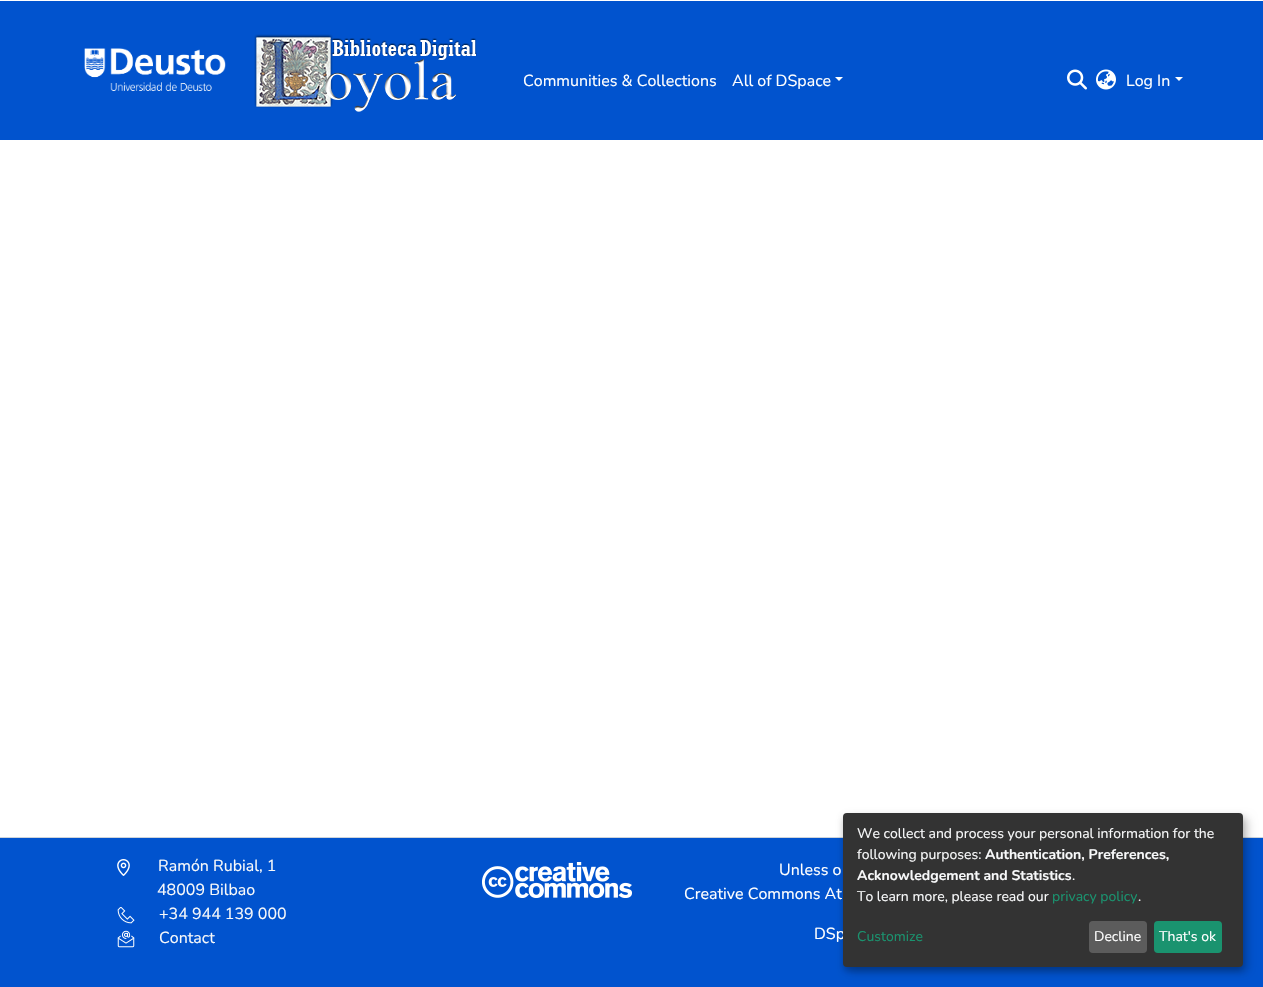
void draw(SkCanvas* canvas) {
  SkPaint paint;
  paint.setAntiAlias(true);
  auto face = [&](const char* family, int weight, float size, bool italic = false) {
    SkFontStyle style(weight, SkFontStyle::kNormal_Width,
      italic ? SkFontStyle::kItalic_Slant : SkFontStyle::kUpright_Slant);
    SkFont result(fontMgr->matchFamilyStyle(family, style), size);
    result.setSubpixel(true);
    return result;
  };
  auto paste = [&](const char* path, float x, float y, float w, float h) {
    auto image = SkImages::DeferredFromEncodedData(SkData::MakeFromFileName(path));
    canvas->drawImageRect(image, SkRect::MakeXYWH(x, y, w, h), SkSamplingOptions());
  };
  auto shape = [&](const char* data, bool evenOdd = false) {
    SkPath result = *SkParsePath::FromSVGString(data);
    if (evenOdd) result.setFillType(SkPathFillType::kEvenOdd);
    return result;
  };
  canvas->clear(0xffffffff);
  paint.setColor(0xff0153ce);
  canvas->drawRect(SkRect::MakeXYWH(0, 1, 1263, 139), paint);
  paste("img/1.png", 84, 48, 142, 44);
  paste("img/2.png", 254, 34, 223, 78);
  paint.setColor(0xffffffff);
  canvas->drawPath(shape("M835 77H843L839 81Z"), paint);
  paste("img/3.png", 1067, 69, 20, 21);
  paste("img/4.png", 1096, 69, 20, 21);
  canvas->drawPath(shape("M1175 77H1183L1179 81Z"), paint);
  paint.setColor(0xff0153ce);
  canvas->drawRect(SkRect::MakeXYWH(0, 838, 1263, 149), paint);
  paint.setColor(0xffced4da);
  canvas->drawRect(SkRect::MakeXYWH(0, 837, 1263, 1), paint);
  paste("img/5.png", 117, 859, 13, 17);
  paste("img/6.png", 117, 907, 18, 17);
  paste("img/7.png", 117, 930, 18, 18);
  paste("img/8.png", 482, 862, 150, 36);
  paint.setColor(0x30000000);
  paint.setMaskFilter(SkMaskFilter::MakeBlur(kNormal_SkBlurStyle, 5));
  canvas->drawRoundRect(SkRect::MakeXYWH(848, 818, 400, 154), 4, 4, paint);
  paint.setMaskFilter(nullptr);
  paint.setColor(0x33000000);
  paint.setMaskFilter(SkMaskFilter::MakeBlur(kNormal_SkBlurStyle, 3));
  canvas->drawRoundRect(SkRect::MakeXYWH(843, 817, 400, 154), 4, 4, paint);
  paint.setMaskFilter(nullptr);
  auto f0 = face("Nunito", 400, 16);
  paint.setColor(0xffffffff);
  {
    const struct { const char* s; float x, y; } items[] = {
      {"Communities & Collections", 523, 86},
      {"All of DSpace", 732, 86},
      {"Log In", 1126, 86},
    };
    for (auto [s, x, y] : items) {
      canvas->drawString(s, x, y, f0, paint);
    }
  }
  paint.setColor(0xfff8f9fa);
  {
    const struct { const char* s; float x, y; } items[] = {
      {"Ramón Rubial, 1", 158, 871},
      {"48009 Bilbao", 157, 895},
      {"+34 944 139 000", 159, 919},
      {"Contact", 159, 943},
    };
    for (auto [s, x, y] : items) {
      canvas->drawString(s, x, y, f0, paint);
    }
  }
  paint.setColor(0xffffffff);
  {
    const struct { const char* s; float x, y; } items[] = {
      {"Unless o", 779, 875},
      {"Creative Commons At", 684, 899},
      {"DSp", 814, 939},
    };
    for (auto [s, x, y] : items) {
      canvas->drawString(s, x, y, f0, paint);
    }
  }
  paint.setColor(0xff333333);
  canvas->drawRoundRect(SkRect::MakeXYWH(843, 813, 400, 154), 4, 4, paint);
  auto f1 = face("Nunito", 400, 14);
  paint.setColor(0xfff8f9fa);
  canvas->drawString("We collect and process your personal information for the", 857, 838, f1, paint);
  canvas->drawString("following purposes:", 857, 859, f1, paint);
  auto f2 = face("Nunito", 700, 14);
  canvas->drawString("Authentication, Preferences,", 985, 859, f2, paint);
  canvas->drawString("Acknowledgement and Statistics", 857, 880, f2, paint);
  canvas->drawString(".", 1072, 880, f1, paint);
  canvas->drawString("To learn more, please read our", 857, 901, f1, paint);
  paint.setColor(0xff1a936f);
  canvas->drawString("privacy policy", 1052, 901, f1, paint);
  paint.setColor(0xfff8f9fa);
  canvas->drawString(".", 1138, 901, f1, paint);
  paint.setColor(0xff1a936f);
  canvas->drawString("Customize", 857, 941, f1, paint);
  paint.setColor(0xff5c5c5c);
  canvas->drawRoundRect(SkRect::MakeXYWH(1089, 921, 58, 32), 4, 4, paint);
  paint.setColor(0xffffffff);
  canvas->drawString("Decline", 1094, 941, f1, paint);
  paint.setColor(0xff1a936f);
  canvas->drawRoundRect(SkRect::MakeXYWH(1154, 921, 68, 32), 4, 4, paint);
  paint.setColor(0xffffffff);
  canvas->drawString("That's ok", 1159, 941, f1, paint);
}
